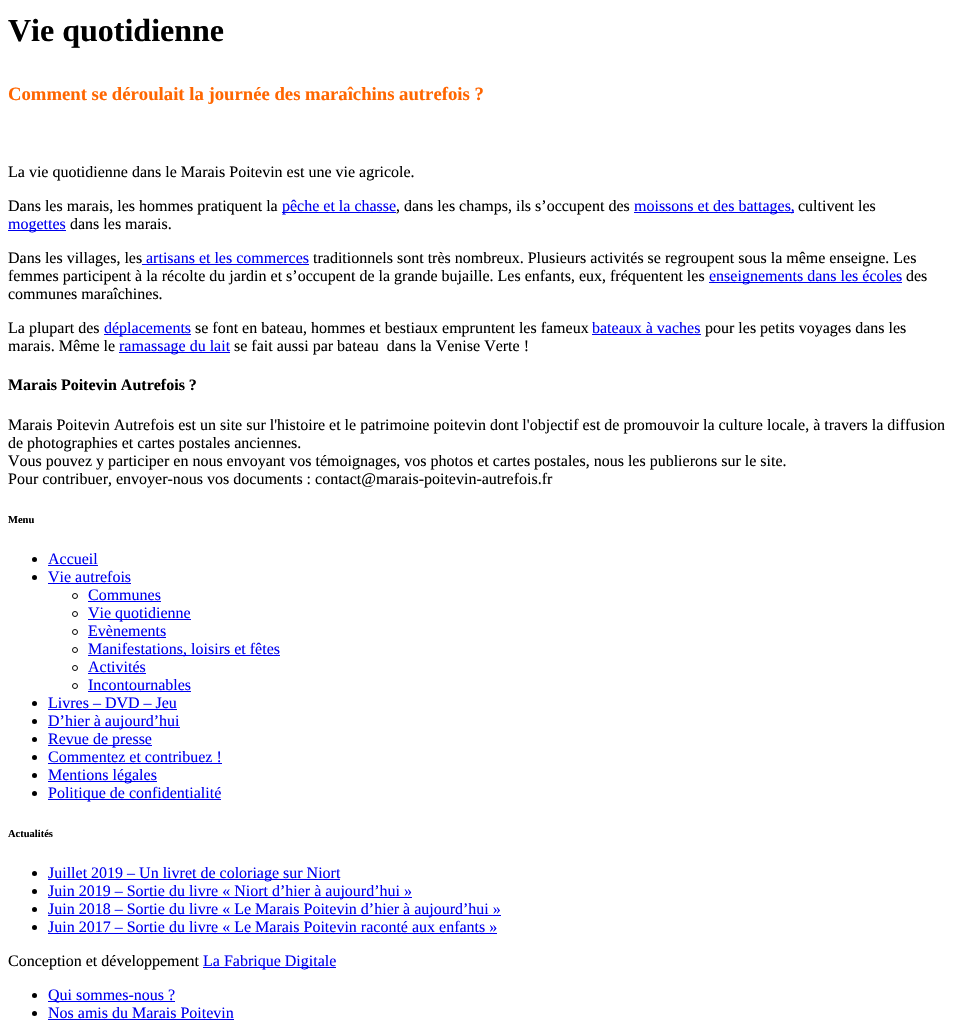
void draw(SkCanvas* canvas) {
  SkPaint paint;
  paint.setAntiAlias(true);
  auto face = [&](const char* family, int weight, float size, bool italic = false) {
    SkFontStyle style(weight, SkFontStyle::kNormal_Width,
      italic ? SkFontStyle::kItalic_Slant : SkFontStyle::kUpright_Slant);
    SkFont result(fontMgr->matchFamilyStyle(family, style), size);
    result.setSubpixel(true);
    return result;
  };
  canvas->clear(0xffffffff);
  {
    const struct { float x, y, w, h; SkColor color; } items[] = {
      {282, 212, 114, 1, 0xff0000ee},
      {634, 212, 160, 1, 0xff0000ee},
      {8, 230, 58, 1, 0xff0000ee},
      {142, 264, 167, 1, 0xff0000ee},
      {709, 282, 193, 1, 0xff0000ee},
      {104, 334, 87, 1, 0xff0000ee},
      {592, 334, 109, 1, 0xff0000ee},
      {119, 352, 111, 1, 0xff0000ee},
    };
    for (auto [x, y, w, h, color] : items) {
      paint.setColor(color);
      canvas->drawRect(SkRect::MakeXYWH(x, y, w, h), paint);
    }
  }
  paint.setColor(0xff000000);
  canvas->drawCircle(34.5f, 559.5f, 2.5f, paint);
  paint.setColor(0xff0000ee);
  canvas->drawRect(SkRect::MakeXYWH(48, 565, 50, 1), paint);
  paint.setColor(0xff000000);
  canvas->drawCircle(34.5f, 577.5f, 2.5f, paint);
  paint.setColor(0xff0000ee);
  canvas->drawRect(SkRect::MakeXYWH(48, 583, 83, 1), paint);
  paint.setStroke(true);
  paint.setStrokeWidth(1);
  paint.setColor(0xff000000);
  canvas->drawCircle(75, 596, 2.5f, paint);
  paint.setStroke(false);
  paint.setColor(0xff0000ee);
  canvas->drawRect(SkRect::MakeXYWH(88, 601, 73, 1), paint);
  paint.setStroke(true);
  paint.setColor(0xff000000);
  canvas->drawCircle(75, 614, 2.5f, paint);
  paint.setStroke(false);
  paint.setColor(0xff0000ee);
  canvas->drawRect(SkRect::MakeXYWH(88, 619, 103, 1), paint);
  paint.setStroke(true);
  paint.setColor(0xff000000);
  canvas->drawCircle(75, 632, 2.5f, paint);
  paint.setStroke(false);
  paint.setColor(0xff0000ee);
  canvas->drawRect(SkRect::MakeXYWH(88, 637, 78, 1), paint);
  paint.setStroke(true);
  paint.setColor(0xff000000);
  canvas->drawCircle(75, 650, 2.5f, paint);
  paint.setStroke(false);
  paint.setColor(0xff0000ee);
  canvas->drawRect(SkRect::MakeXYWH(88, 655, 192, 1), paint);
  paint.setStroke(true);
  paint.setColor(0xff000000);
  canvas->drawCircle(75, 668, 2.5f, paint);
  paint.setStroke(false);
  paint.setColor(0xff0000ee);
  canvas->drawRect(SkRect::MakeXYWH(88, 673, 58, 1), paint);
  paint.setStroke(true);
  paint.setColor(0xff000000);
  canvas->drawCircle(75, 686, 2.5f, paint);
  paint.setStroke(false);
  paint.setColor(0xff0000ee);
  canvas->drawRect(SkRect::MakeXYWH(88, 691, 103, 1), paint);
  paint.setColor(0xff000000);
  canvas->drawCircle(34.5f, 703.5f, 2.5f, paint);
  paint.setColor(0xff0000ee);
  canvas->drawRect(SkRect::MakeXYWH(48, 709, 129, 1), paint);
  paint.setColor(0xff000000);
  canvas->drawCircle(34.5f, 721.5f, 2.5f, paint);
  paint.setColor(0xff0000ee);
  canvas->drawRect(SkRect::MakeXYWH(48, 727, 132, 1), paint);
  paint.setColor(0xff000000);
  canvas->drawCircle(34.5f, 739.5f, 2.5f, paint);
  paint.setColor(0xff0000ee);
  canvas->drawRect(SkRect::MakeXYWH(48, 745, 104, 1), paint);
  paint.setColor(0xff000000);
  canvas->drawCircle(34.5f, 757.5f, 2.5f, paint);
  paint.setColor(0xff0000ee);
  canvas->drawRect(SkRect::MakeXYWH(48, 763, 174, 1), paint);
  paint.setColor(0xff000000);
  canvas->drawCircle(34.5f, 775.5f, 2.5f, paint);
  paint.setColor(0xff0000ee);
  canvas->drawRect(SkRect::MakeXYWH(48, 781, 109, 1), paint);
  paint.setColor(0xff000000);
  canvas->drawCircle(34.5f, 793.5f, 2.5f, paint);
  paint.setColor(0xff0000ee);
  canvas->drawRect(SkRect::MakeXYWH(48, 799, 173, 1), paint);
  paint.setColor(0xff000000);
  canvas->drawCircle(34.5f, 873.5f, 2.5f, paint);
  paint.setColor(0xff0000ee);
  canvas->drawRect(SkRect::MakeXYWH(48, 879, 292, 1), paint);
  paint.setColor(0xff000000);
  canvas->drawCircle(34.5f, 891.5f, 2.5f, paint);
  paint.setColor(0xff0000ee);
  canvas->drawRect(SkRect::MakeXYWH(48, 897, 364, 1), paint);
  paint.setColor(0xff000000);
  canvas->drawCircle(34.5f, 909.5f, 2.5f, paint);
  paint.setColor(0xff0000ee);
  canvas->drawRect(SkRect::MakeXYWH(48, 915, 453, 1), paint);
  paint.setColor(0xff000000);
  canvas->drawCircle(34.5f, 927.5f, 2.5f, paint);
  paint.setColor(0xff0000ee);
  canvas->drawRect(SkRect::MakeXYWH(48, 933, 449, 1), paint);
  canvas->drawRect(SkRect::MakeXYWH(203, 967, 133, 1), paint);
  paint.setColor(0xff000000);
  canvas->drawCircle(34.5f, 995.5f, 2.5f, paint);
  paint.setColor(0xff0000ee);
  canvas->drawRect(SkRect::MakeXYWH(48, 1001, 127, 1), paint);
  paint.setColor(0xff000000);
  canvas->drawCircle(34.5f, 1013.5f, 2.5f, paint);
  paint.setColor(0xff0000ee);
  canvas->drawRect(SkRect::MakeXYWH(48, 1019, 186, 1), paint);
  auto f0 = face("Liberation Serif", 700, 32);
  paint.setColor(0xff000000);
  canvas->drawString("Vie quotidienne", 8, 41, f0, paint);
  auto f1 = face("Liberation Serif", 700, 18.7f);
  paint.setColor(0xffff6600);
  canvas->drawString("Comment se déroulait la journée des maraîchins autrefois ?", 8, 100, f1, paint);
  auto f2 = face("Liberation Serif", 400, 16);
  paint.setColor(0xff000000);
  canvas->drawString("La vie quotidienne dans le Marais Poitevin est une vie agricole.", 8, 177, f2, paint);
  canvas->drawString("Dans les marais, les hommes pratiquent la", 8, 211, f2, paint);
  paint.setColor(0xff0000ee);
  canvas->drawString("pêche et la chasse", 282, 211, f2, paint);
  paint.setColor(0xff000000);
  canvas->drawString(", dans les champs, ils s’occupent des", 396, 211, f2, paint);
  paint.setColor(0xff0000ee);
  canvas->drawString("moissons et des battages,", 634, 211, f2, paint);
  paint.setColor(0xff000000);
  canvas->drawString("cultivent les", 798, 211, f2, paint);
  paint.setColor(0xff0000ee);
  canvas->drawString("mogettes", 8, 229, f2, paint);
  paint.setColor(0xff000000);
  canvas->drawString("dans les marais.", 70, 229, f2, paint);
  canvas->drawString("Dans les villages, les", 8, 263, f2, paint);
  paint.setColor(0xff0000ee);
  canvas->drawString("artisans et les commerces", 146, 263, f2, paint);
  paint.setColor(0xff000000);
  canvas->drawString("traditionnels sont très nombreux. Plusieurs activités se regroupent sous la même enseigne. Les", 313, 263, f2, paint);
  canvas->drawString("femmes participent à la récolte du jardin et s’occupent de la grande bujaille. Les enfants, eux, fréquentent les", 8, 281, f2, paint);
  paint.setColor(0xff0000ee);
  canvas->drawString("enseignements dans les écoles", 709, 281, f2, paint);
  paint.setColor(0xff000000);
  {
    const struct { const char* s; float x, y; } items[] = {
      {"des", 906, 281},
      {"communes maraîchines.", 8, 299},
      {"La plupart des", 8, 333},
    };
    for (auto [s, x, y] : items) {
      canvas->drawString(s, x, y, f2, paint);
    }
  }
  paint.setColor(0xff0000ee);
  canvas->drawString("déplacements", 104, 333, f2, paint);
  paint.setColor(0xff000000);
  canvas->drawString("se font en bateau, hommes et bestiaux empruntent les fameux", 195, 333, f2, paint);
  paint.setColor(0xff0000ee);
  canvas->drawString("bateaux à vaches", 592, 333, f2, paint);
  paint.setColor(0xff000000);
  canvas->drawString("pour les petits voyages dans les", 705, 333, f2, paint);
  canvas->drawString("marais. Même le", 8, 351, f2, paint);
  paint.setColor(0xff0000ee);
  canvas->drawString("ramassage du lait", 119, 351, f2, paint);
  paint.setColor(0xff000000);
  canvas->drawString("se fait aussi par bateau  dans la Venise Verte !", 234, 351, f2, paint);
  auto f3 = face("Liberation Serif", 700, 16);
  canvas->drawString("Marais Poitevin Autrefois ?", 8, 390, f3, paint);
  {
    const struct { const char* s; float x, y; } items[] = {
      {"Marais Poitevin Autrefois est un site sur l'histoire et le patrimoine poitevin dont l'objectif est de promouvoir la culture locale, à travers la diffusion", 8, 430},
      {"de photographies et cartes postales anciennes.", 8, 448},
      {"Vous pouvez y participer en nous envoyant vos témoignages, vos photos et cartes postales, nous les publierons sur le site.", 8, 466},
      {"Pour contribuer, envoyer-nous vos documents : contact@marais-poitevin-autrefois.fr", 8, 484},
    };
    for (auto [s, x, y] : items) {
      canvas->drawString(s, x, y, f2, paint);
    }
  }
  auto f4 = face("Liberation Serif", 700, 10.5f);
  canvas->drawString("Menu", 8, 523, f4, paint);
  paint.setColor(0xff0000ee);
  {
    const struct { const char* s; float x, y; } items[] = {
      {"Accueil", 48, 564},
      {"Vie autrefois", 48, 582},
      {"Communes", 88, 600},
      {"Vie quotidienne", 88, 618},
      {"Evènements", 88, 636},
      {"Manifestations, loisirs et fêtes", 88, 654},
      {"Activités", 88, 672},
      {"Incontournables", 88, 690},
      {"Livres – DVD – Jeu", 48, 708},
      {"D’hier à aujourd’hui", 48, 726},
      {"Revue de presse", 48, 744},
      {"Commentez et contribuez !", 48, 762},
      {"Mentions légales", 48, 780},
      {"Politique de confidentialité", 48, 798},
    };
    for (auto [s, x, y] : items) {
      canvas->drawString(s, x, y, f2, paint);
    }
  }
  paint.setColor(0xff000000);
  canvas->drawString("Actualités", 8, 837, f4, paint);
  paint.setColor(0xff0000ee);
  {
    const struct { const char* s; float x, y; } items[] = {
      {"Juillet 2019 – Un livret de coloriage sur Niort", 48, 878},
      {"Juin 2019 – Sortie du livre « Niort d’hier à aujourd’hui »", 48, 896},
      {"Juin 2018 – Sortie du livre « Le Marais Poitevin d’hier à aujourd’hui »", 48, 914},
      {"Juin 2017 – Sortie du livre « Le Marais Poitevin raconté aux enfants »", 48, 932},
    };
    for (auto [s, x, y] : items) {
      canvas->drawString(s, x, y, f2, paint);
    }
  }
  paint.setColor(0xff000000);
  canvas->drawString("Conception et développement", 8, 966, f2, paint);
  paint.setColor(0xff0000ee);
  {
    const struct { const char* s; float x, y; } items[] = {
      {"La Fabrique Digitale", 203, 966},
      {"Qui sommes-nous ?", 48, 1000},
      {"Nos amis du Marais Poitevin", 48, 1018},
    };
    for (auto [s, x, y] : items) {
      canvas->drawString(s, x, y, f2, paint);
    }
  }
}
